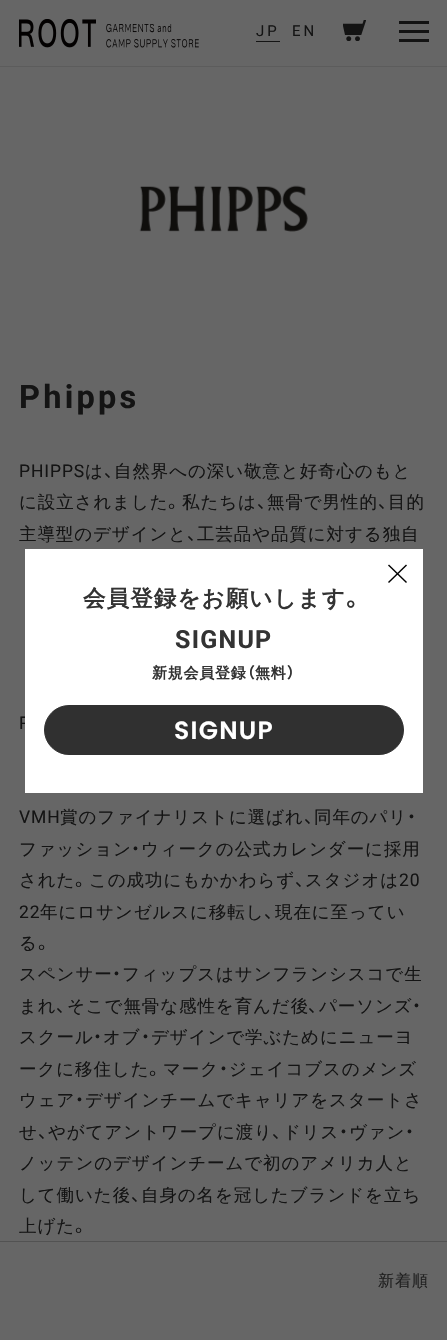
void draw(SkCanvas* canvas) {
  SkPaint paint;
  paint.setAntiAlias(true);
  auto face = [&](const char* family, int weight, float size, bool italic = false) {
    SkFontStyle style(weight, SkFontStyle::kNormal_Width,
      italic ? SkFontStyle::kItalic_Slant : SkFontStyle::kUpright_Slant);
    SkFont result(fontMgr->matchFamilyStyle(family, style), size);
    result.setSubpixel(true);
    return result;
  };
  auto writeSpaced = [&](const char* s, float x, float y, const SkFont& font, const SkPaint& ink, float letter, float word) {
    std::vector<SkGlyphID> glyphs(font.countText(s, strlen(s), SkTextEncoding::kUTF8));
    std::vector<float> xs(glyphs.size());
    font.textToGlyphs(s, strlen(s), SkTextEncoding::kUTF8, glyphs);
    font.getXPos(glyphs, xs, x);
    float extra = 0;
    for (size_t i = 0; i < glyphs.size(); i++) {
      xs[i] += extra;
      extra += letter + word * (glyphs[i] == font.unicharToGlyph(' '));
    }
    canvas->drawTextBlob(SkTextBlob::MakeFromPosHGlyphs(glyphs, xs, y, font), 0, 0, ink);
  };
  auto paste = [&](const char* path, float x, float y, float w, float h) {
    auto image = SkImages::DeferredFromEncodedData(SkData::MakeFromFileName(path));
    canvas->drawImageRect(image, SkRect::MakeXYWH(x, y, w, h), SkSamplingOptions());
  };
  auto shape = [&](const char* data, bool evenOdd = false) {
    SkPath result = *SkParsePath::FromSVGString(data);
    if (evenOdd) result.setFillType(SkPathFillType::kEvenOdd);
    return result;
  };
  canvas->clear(0xff666666);
  paint.setColor(0xff5c5c5c);
  canvas->drawRect(SkRect::MakeXYWH(0, 66, 447, 1), paint);
  paste("img/1.png", 19, 19, 77, 29);
  paste("img/2.png", 106, 24, 93, 24);
  paint.setColor(0xff141414);
  canvas->drawRect(SkRect::MakeXYWH(256, 41, 24, 1), paint);
  paste("img/3.png", 343, 20, 23, 21);
  {
    const struct { float x, y, w, h; SkColor color; } items[] = {
      {399, 21, 30, 3, 0xff131313},
      {399, 30, 30, 3, 0xff131313},
      {399, 39, 30, 3, 0xff131313},
    };
    for (auto [x, y, w, h, color] : items) {
      paint.setColor(color);
      canvas->drawRect(SkRect::MakeXYWH(x, y, w, h), paint);
    }
  }
  paste("img/4.png", 139, 185, 169, 47);
  paint.setColor(0xff525252);
  canvas->drawRect(SkRect::MakeXYWH(0, 1241, 447, 1), paint);
  auto f0 = face("Roboto", 400, 15);
  paint.setColor(0xff141414);
  writeSpaced("JP", 256, 36, f0, paint, 3, 0);
  writeSpaced("EN", 292, 36, f0, paint, 3, 0);
  auto f1 = face("Roboto", 700, 32.5f);
  writeSpaced("Phipps", 19, 408, f1, paint, 3.25f, 0);
  auto f2 = face("Roboto", 400, 17.5f);
  writeSpaced("PHIPPS", 19, 477, f2, paint, 0.9f, 0);
  auto f3 = face("WenQuanYi Zen Hei", 500, 17.5f);
  writeSpaced("は", 85, 477, f3, paint, 0.9f, 0);
  auto f4 = face("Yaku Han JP", 400, 17.5f);
  writeSpaced("、", 104, 477, f4, paint, 0.9f, 0);
  writeSpaced("自然界への深い敬意と好奇心のもと", 114, 477, f3, paint, 0.9f, 0);
  writeSpaced("に設立されました", 19, 508, f3, paint, 0.9f, 0);
  writeSpaced("。", 168, 508, f4, paint, 0.9f, 0);
  writeSpaced("私たちは", 182, 508, f3, paint, 0.9f, 0);
  writeSpaced("、", 257, 508, f4, paint, 0.9f, 0);
  writeSpaced("無骨で男性的", 267, 508, f3, paint, 0.9f, 0);
  writeSpaced("、", 378, 508, f4, paint, 0.9f, 0);
  writeSpaced("目的", 388, 508, f3, paint, 0.9f, 0);
  writeSpaced("主導型のデザインと", 19, 540, f3, paint, 0.9f, 0);
  writeSpaced("、", 187, 540, f4, paint, 0.9f, 0);
  writeSpaced("工芸品や品質に対する独自", 197, 540, f3, paint, 0.9f, 0);
  writeSpaced("P", 19, 729, f2, paint, 0.9f, 0);
  writeSpaced("VMH", 19, 823, f2, paint, 0.9f, 0);
  writeSpaced("賞のファイナリストに選ばれ", 60, 823, f3, paint, 0.9f, 0);
  writeSpaced("同年のパリ", 314, 823, f3, paint, 0.9f, 0);
  writeSpaced("・", 407, 823, f4, paint, 0.9f, 0);
  writeSpaced("、", 304, 823, f4, paint, 0.9f, 0);
  writeSpaced("ファッション", 19, 855, f3, paint, 0.9f, 0);
  writeSpaced("・", 131, 855, f4, paint, 0.9f, 0);
  writeSpaced("ウィークの公式カレンダーに採用", 141, 855, f3, paint, 0.9f, 0);
  writeSpaced("された", 19, 886, f3, paint, 0.9f, 0);
  writeSpaced("。", 75, 886, f4, paint, 0.9f, 0);
  writeSpaced("この成功にもかかわらず", 89, 886, f3, paint, 0.9f, 0);
  writeSpaced("、", 295, 886, f4, paint, 0.9f, 0);
  writeSpaced("スタジオは", 305, 886, f3, paint, 0.9f, 0);
  writeSpaced("20", 399, 886, f2, paint, 0.9f, 0);
  writeSpaced("22", 19, 918, f2, paint, 0.9f, 0);
  writeSpaced("年にロサンゼルスに移転し", 40, 918, f3, paint, 0.9f, 0);
  writeSpaced("、", 264, 918, f4, paint, 0.9f, 0);
  writeSpaced("現在に至ってい", 275, 918, f3, paint, 0.9f, 0);
  writeSpaced("る", 19, 949, f3, paint, 0.9f, 0);
  writeSpaced("。", 38, 949, f4, paint, 0.9f, 0);
  writeSpaced("スペンサー", 19, 980, f3, paint, 0.9f, 0);
  writeSpaced("・", 112, 980, f4, paint, 0.9f, 0);
  {
    const struct { const char* s; float x, y; } items[] = {
      {"フィップスはサンフランシスコで生", 122, 980},
      {"まれ", 19, 1012},
      {"そこで無骨な感性を育んだ後", 67, 1012},
      {"パーソンズ", 319, 1012},
    };
    for (auto [s, x, y] : items) {
      writeSpaced(s, x, y, f3, paint, 0.9f, 0);
    }
  }
  {
    const struct { const char* s; float x, y; } items[] = {
      {"・", 412, 1012},
      {"、", 56, 1012},
      {"、", 308, 1012},
    };
    for (auto [s, x, y] : items) {
      writeSpaced(s, x, y, f4, paint, 0.9f, 0);
    }
  }
  writeSpaced("スクール", 19, 1043, f3, paint, 0.9f, 0);
  writeSpaced("・", 93, 1043, f4, paint, 0.9f, 0);
  writeSpaced("オブ", 103, 1043, f3, paint, 0.9f, 0);
  writeSpaced("・", 141, 1043, f4, paint, 0.9f, 0);
  {
    const struct { const char* s; float x, y; } items[] = {
      {"デザインで学ぶためにニューヨ", 151, 1043},
      {"ークに移住した", 19, 1075},
      {"マーク", 163, 1075},
    };
    for (auto [s, x, y] : items) {
      writeSpaced(s, x, y, f3, paint, 0.9f, 0);
    }
  }
  writeSpaced("・", 219, 1075, f4, paint, 0.9f, 0);
  writeSpaced("ジェイコブスのメンズ", 229, 1075, f3, paint, 0.9f, 0);
  writeSpaced("。", 149, 1075, f4, paint, 0.9f, 0);
  writeSpaced("ウェア", 19, 1106, f3, paint, 0.9f, 0);
  writeSpaced("・", 75, 1106, f4, paint, 0.9f, 0);
  {
    const struct { const char* s; float x, y; } items[] = {
      {"デザインチームでキャリアをスタートさ", 85, 1106},
      {"せ", 19, 1138},
      {"やがてアントワープに渡り", 48, 1138},
      {"ドリス", 283, 1138},
    };
    for (auto [s, x, y] : items) {
      writeSpaced(s, x, y, f3, paint, 0.9f, 0);
    }
  }
  writeSpaced("・", 339, 1138, f4, paint, 0.9f, 0);
  writeSpaced("ヴァン", 349, 1138, f3, paint, 0.9f, 0);
  {
    const struct { const char* s; float x, y; } items[] = {
      {"・", 405, 1138},
      {"、", 38, 1138},
      {"、", 272, 1138},
    };
    for (auto [s, x, y] : items) {
      writeSpaced(s, x, y, f4, paint, 0.9f, 0);
    }
  }
  writeSpaced("ノッテンのデザインチームで初のアメリカ人と", 19, 1169, f3, paint, 0.9f, 0);
  writeSpaced("して働いた後", 19, 1201, f3, paint, 0.9f, 0);
  writeSpaced("、", 131, 1201, f4, paint, 0.9f, 0);
  writeSpaced("自身の名を冠したブランドを立ち", 141, 1201, f3, paint, 0.9f, 0);
  writeSpaced("上げた", 19, 1232, f3, paint, 0.9f, 0);
  writeSpaced("。", 75, 1232, f4, paint, 0.9f, 0);
  auto f5 = face("WenQuanYi Zen Hei", 500, 16);
  paint.setColor(0xff202020);
  writeSpaced("新着順", 378, 1286, f5, paint, 1, 0);
  paint.setColor(0xffffffff);
  canvas->drawRect(SkRect::MakeXYWH(25, 549, 398, 244), paint);
  paint.setColor(0xff000000);
  canvas->drawPath(shape("M389 564.5L407 582L406 583L388 565.5Z"), paint);
  canvas->drawPath(shape("M388 582L406 564.5L407 565.5L389 583Z"), paint);
  auto f6 = face("WenQuanYi Zen Hei", 700, 22.5f);
  paint.setColor(0xff333333);
  writeSpaced("会員登録をお願いします", 83, 606, f6, paint, 1.1f, 0);
  auto f7 = face("Yaku Han JP", 700, 22.5f);
  writeSpaced("。", 346, 606, f7, paint, 1.1f, 0);
  auto f8 = face("Roboto", 700, 25);
  writeSpaced("SIGNUP", 175, 648, f8, paint, 1.25f, 0);
  auto f9 = face("WenQuanYi Zen Hei", 700, 15);
  writeSpaced("新規会員登録", 152, 678, f9, paint, 0.75f, 0);
  auto f10 = face("Yaku Han JP", 700, 15);
  writeSpaced("（", 247, 678, f10, paint, 0.75f, 0);
  writeSpaced("無料", 255, 678, f9, paint, 0.75f, 0);
  writeSpaced("）", 287, 678, f10, paint, 0.75f, 0);
  paint.setColor(0xff303030);
  canvas->drawRoundRect(SkRect::MakeXYWH(44.5f, 705.5f, 359, 49), 24.5f, 24.5f, paint);
  paint.setStroke(true);
  paint.setStrokeWidth(1);
  canvas->drawRoundRect(SkRect::MakeXYWH(44.5f, 705.5f, 359, 49), 24.5f, 24.5f, paint);
  auto f11 = face("Poppins", 600, 25);
  paint.setStroke(false);
  paint.setColor(0xffffffff);
  writeSpaced("SIGNUP", 174, 739, f11, paint, 1.25f, 0);
}
